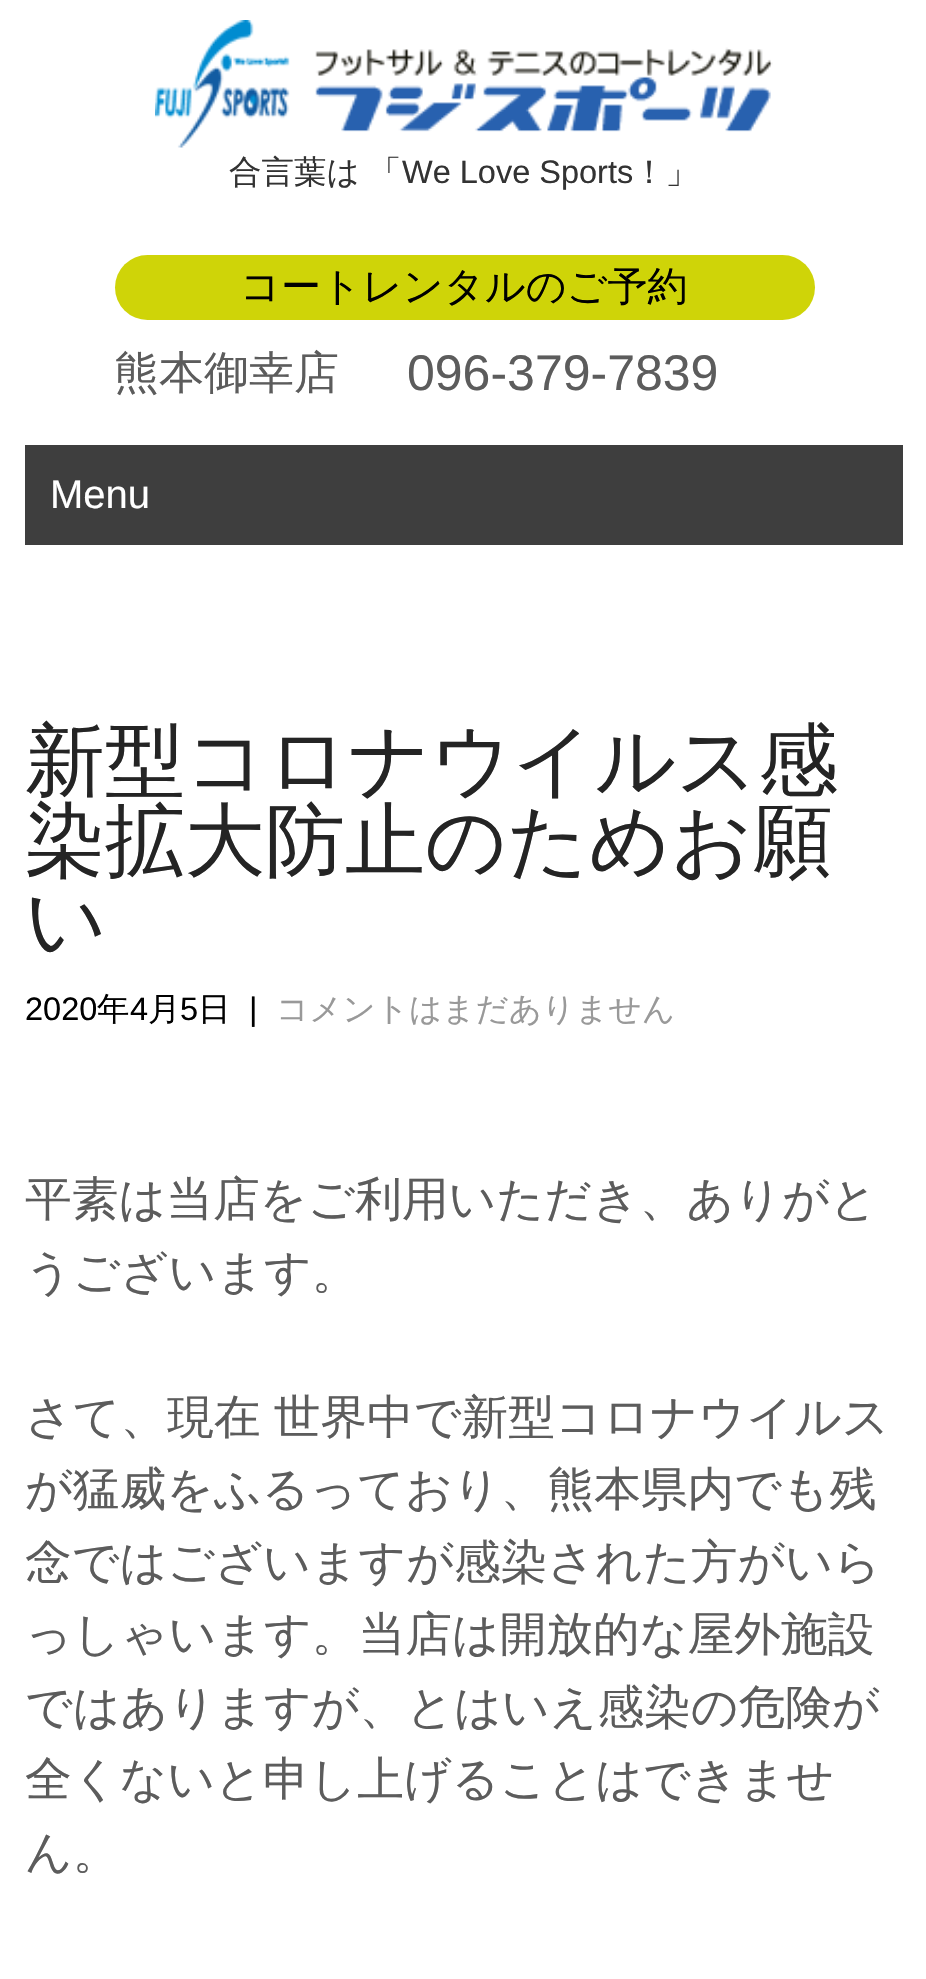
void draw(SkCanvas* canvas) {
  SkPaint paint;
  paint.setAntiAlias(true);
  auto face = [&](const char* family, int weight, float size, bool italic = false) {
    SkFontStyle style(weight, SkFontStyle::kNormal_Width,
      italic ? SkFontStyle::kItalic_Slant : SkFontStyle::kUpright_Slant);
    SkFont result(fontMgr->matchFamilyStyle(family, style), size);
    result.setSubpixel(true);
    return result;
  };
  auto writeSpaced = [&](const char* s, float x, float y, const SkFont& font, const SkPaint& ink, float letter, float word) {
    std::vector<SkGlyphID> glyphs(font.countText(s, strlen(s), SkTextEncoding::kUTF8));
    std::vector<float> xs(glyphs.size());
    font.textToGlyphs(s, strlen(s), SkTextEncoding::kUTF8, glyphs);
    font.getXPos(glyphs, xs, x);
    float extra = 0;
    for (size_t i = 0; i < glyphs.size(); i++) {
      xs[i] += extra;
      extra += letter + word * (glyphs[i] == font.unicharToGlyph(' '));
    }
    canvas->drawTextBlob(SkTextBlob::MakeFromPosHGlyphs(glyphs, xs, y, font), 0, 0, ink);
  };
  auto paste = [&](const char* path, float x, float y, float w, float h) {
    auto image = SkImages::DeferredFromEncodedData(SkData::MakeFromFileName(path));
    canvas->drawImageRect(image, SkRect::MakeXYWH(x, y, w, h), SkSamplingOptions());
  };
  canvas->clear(0xffffffff);
  paste("img/1.png", 155, 20, 618, 128);
  paint.setColor(0xffcfd408);
  canvas->drawRoundRect(SkRect::MakeXYWH(115, 255, 700, 65), 32.5f, 32.5f, paint);
  paint.setColor(0xff3e3e3e);
  canvas->drawRect(SkRect::MakeXYWH(25, 445, 878, 100), paint);
  auto f0 = face("WenQuanYi Zen Hei", 500, 32.5f);
  paint.setColor(0xff333333);
  canvas->drawString("合言葉は", 229, 183, f0, paint);
  canvas->drawString("「", 369, 183, f0, paint);
  auto f1 = face("Liberation Sans", 400, 32.5f);
  canvas->drawString("We Love Sports", 402, 183, f1, paint);
  canvas->drawString("！」", 633, 183, f0, paint);
  auto f2 = face("WenQuanYi Zen Hei", 500, 40);
  paint.setColor(0xff000000);
  canvas->drawString("コートレンタルのご予約", 240, 300, f2, paint);
  auto f3 = face("WenQuanYi Zen Hei", 500, 45);
  paint.setColor(0xff5c5c5c);
  canvas->drawString("熊本御幸店", 114, 388, f3, paint);
  auto f4 = face("Liberation Sans", 400, 50);
  canvas->drawString("096-379-7839", 407, 390, f4, paint);
  auto f5 = face("Liberation Sans", 400, 40);
  paint.setColor(0xffffffff);
  canvas->drawString("Menu", 50, 508, f5, paint);
  auto f6 = face("WenQuanYi Zen Hei", 500, 80);
  paint.setColor(0xff242424);
  {
    const struct { const char* s; float x, y; } items[] = {
      {"新型コロナウイルス感", 25, 788},
      {"染拡大防止のためお願", 25, 868},
      {"い", 25, 948},
    };
    for (auto [s, x, y] : items) {
      canvas->drawString(s, x, y, f6, paint);
    }
  }
  paint.setColor(0xff000000);
  canvas->drawString("2020", 25, 1020, f1, paint);
  canvas->drawString("年", 97, 1020, f0, paint);
  canvas->drawString("4", 130, 1020, f1, paint);
  canvas->drawString("月", 148, 1020, f0, paint);
  canvas->drawString("5", 180, 1020, f1, paint);
  canvas->drawString("日", 198, 1020, f0, paint);
  canvas->drawString("|", 249, 1020, f1, paint);
  paint.setColor(0xff999999);
  canvas->drawString("コメントはまだありません", 276, 1020, f0, paint);
  auto f7 = face("WenQuanYi Zen Hei", 500, 46.7f);
  paint.setColor(0xff5c5c5c);
  canvas->drawString("平素は当店をご利用いただき、ありがと", 25, 1215, f7, paint);
  canvas->drawString("うございます。", 25, 1288, f7, paint);
  writeSpaced("さて、現在 世界中で新型コロナウイルス", 25, 1433, f7, paint, 0, -1);
  {
    const struct { const char* s; float x, y; } items[] = {
      {"が猛威をふるっており、熊本県内でも残", 25, 1505},
      {"念ではございますが感染された方がいら", 25, 1578},
      {"っしゃいます。当店は開放的な屋外施設", 25, 1650},
      {"ではありますが、とはいえ感染の危険が", 25, 1723},
      {"全くないと申し上げることはできませ", 25, 1795},
      {"ん。", 25, 1868},
    };
    for (auto [s, x, y] : items) {
      canvas->drawString(s, x, y, f7, paint);
    }
  }
}
